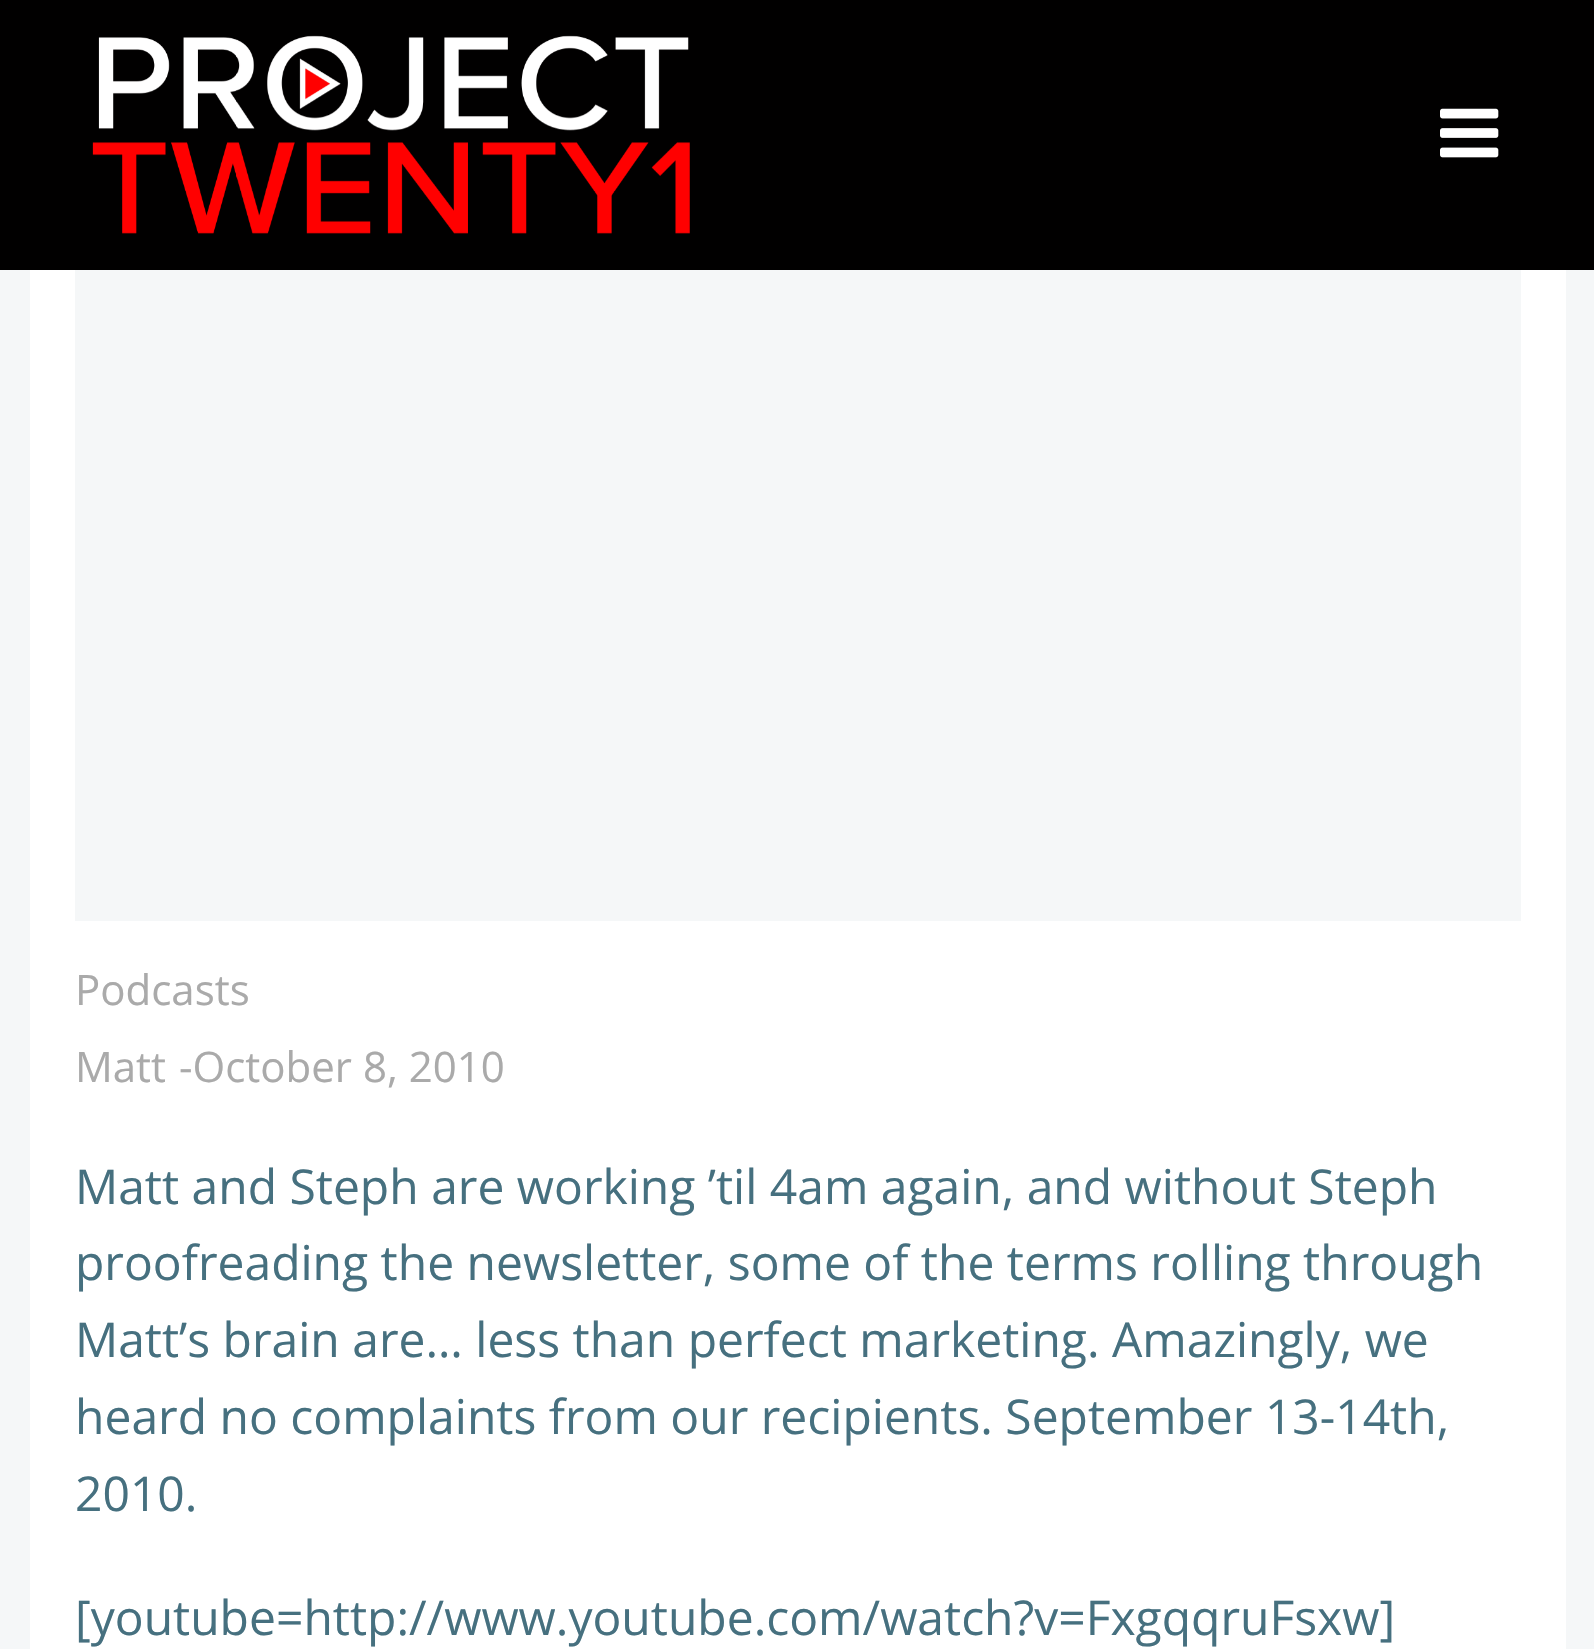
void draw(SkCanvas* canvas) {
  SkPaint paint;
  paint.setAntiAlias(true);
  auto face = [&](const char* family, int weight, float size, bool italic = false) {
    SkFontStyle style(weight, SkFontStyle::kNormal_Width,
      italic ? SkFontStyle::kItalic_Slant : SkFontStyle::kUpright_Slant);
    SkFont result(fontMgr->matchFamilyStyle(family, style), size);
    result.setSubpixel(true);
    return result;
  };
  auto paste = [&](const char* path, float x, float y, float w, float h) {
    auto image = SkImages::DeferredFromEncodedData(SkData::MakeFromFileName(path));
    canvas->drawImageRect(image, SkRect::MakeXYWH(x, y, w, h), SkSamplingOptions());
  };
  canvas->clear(0xfff5f7f8);
  paint.setColor(0xff010000);
  canvas->drawRect(SkRect::MakeXYWH(0, 0, 1594, 270), paint);
  paste("img/1.png", 92, 35, 598, 199);
  paste("img/2.png", 1440, 108, 59, 50);
  paint.setColor(0xffffffff);
  canvas->drawRect(SkRect::MakeXYWH(30, 270, 1536, 1379), paint);
  paint.setColor(0xfff5f7f8);
  canvas->drawRect(SkRect::MakeXYWH(75, 270, 1446, 651), paint);
  auto f0 = face("Open Sans", 400, 42);
  paint.setColor(0xffaaaaaa);
  {
    const struct { const char* s; float x, y; } items[] = {
      {"Podcasts", 75, 1005},
      {"Matt", 75, 1082},
      {"-October 8, 2010", 179, 1082},
    };
    for (auto [s, x, y] : items) {
      canvas->drawString(s, x, y, f0, paint);
    }
  }
  auto f1 = face("Open Sans", 400, 48);
  paint.setColor(0xff46707f);
  {
    const struct { const char* s; float x, y; } items[] = {
      {"Matt and Steph are working ’til 4am again, and without Steph", 75, 1204},
      {"proofreading the newsletter, some of the terms rolling through", 75, 1280},
      {"Matt’s brain are… less than perfect marketing. Amazingly, we", 75, 1357},
      {"heard no complaints from our recipients. September 13-14th,", 75, 1434},
      {"2010.", 75, 1511},
      {"[youtube=http://www.youtube.com/watch?v=FxgqqruFsxw]", 75, 1635},
    };
    for (auto [s, x, y] : items) {
      canvas->drawString(s, x, y, f1, paint);
    }
  }
}
